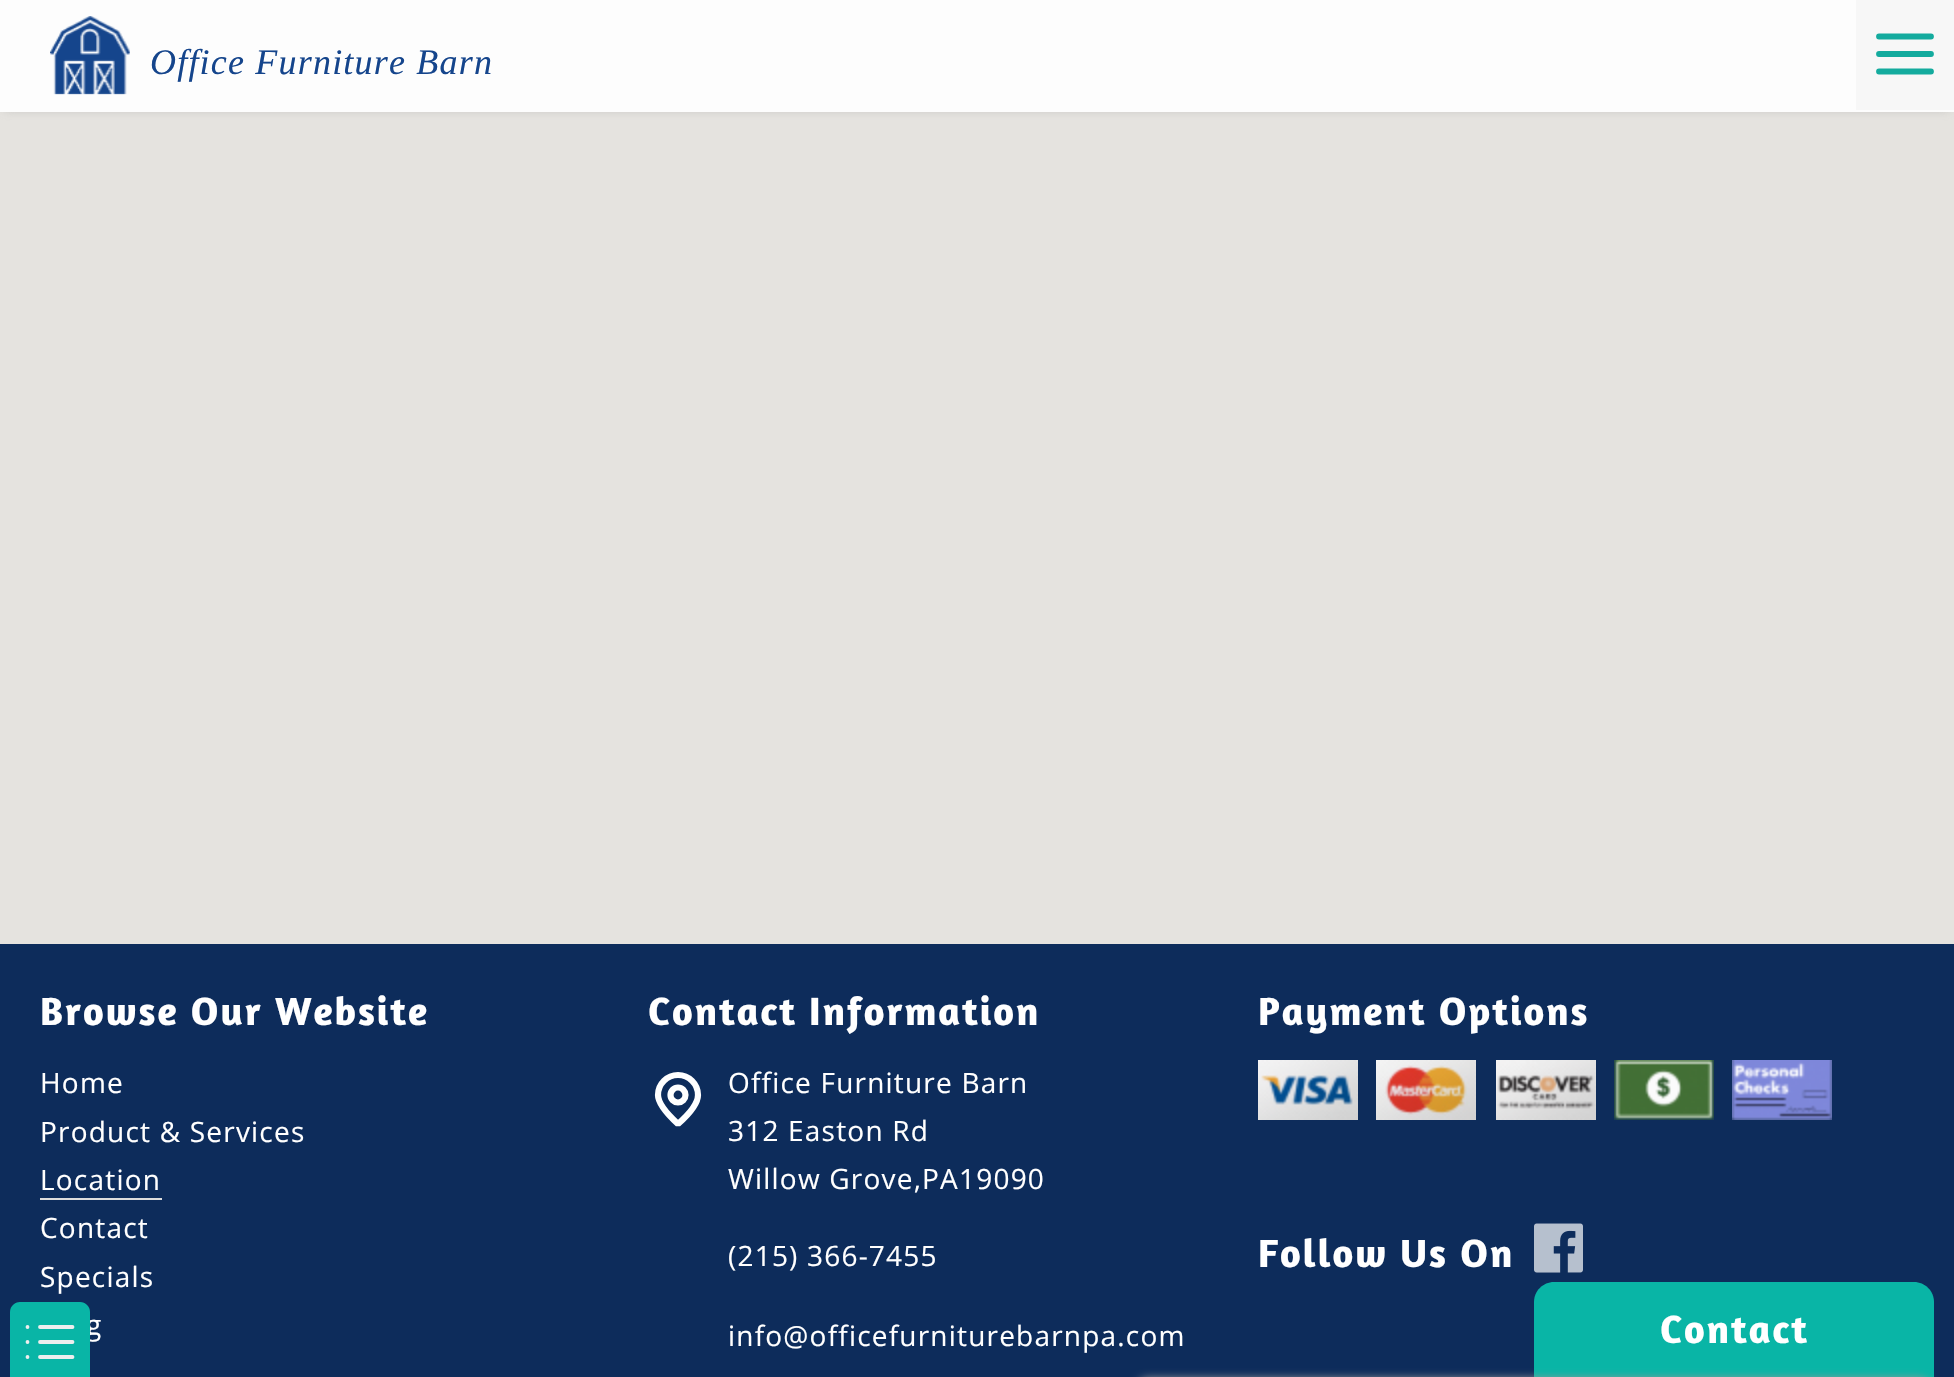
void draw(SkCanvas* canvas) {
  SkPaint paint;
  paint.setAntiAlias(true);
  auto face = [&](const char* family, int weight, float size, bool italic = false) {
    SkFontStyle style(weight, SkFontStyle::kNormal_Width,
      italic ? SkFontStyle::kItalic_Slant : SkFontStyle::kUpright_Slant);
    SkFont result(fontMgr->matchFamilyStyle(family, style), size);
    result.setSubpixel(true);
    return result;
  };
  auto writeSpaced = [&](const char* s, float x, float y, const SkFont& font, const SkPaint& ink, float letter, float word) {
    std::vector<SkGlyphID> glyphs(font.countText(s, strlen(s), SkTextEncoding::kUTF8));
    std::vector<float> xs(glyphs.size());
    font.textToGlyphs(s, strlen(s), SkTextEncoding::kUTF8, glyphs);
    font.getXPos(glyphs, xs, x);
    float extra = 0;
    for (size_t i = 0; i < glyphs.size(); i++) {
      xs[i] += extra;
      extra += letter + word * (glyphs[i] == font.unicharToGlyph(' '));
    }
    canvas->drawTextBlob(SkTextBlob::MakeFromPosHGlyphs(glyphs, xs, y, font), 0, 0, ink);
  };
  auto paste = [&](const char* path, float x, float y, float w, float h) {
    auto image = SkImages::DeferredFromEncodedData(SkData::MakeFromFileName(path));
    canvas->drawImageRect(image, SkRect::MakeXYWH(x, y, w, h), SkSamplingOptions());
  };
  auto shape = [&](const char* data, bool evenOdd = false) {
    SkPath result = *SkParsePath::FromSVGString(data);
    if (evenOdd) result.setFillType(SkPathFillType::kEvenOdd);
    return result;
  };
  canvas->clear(0xff0d2c5b);
  paint.setColor(0xffe5e3df);
  canvas->drawRect(SkRect::MakeXYWH(0, 112, 1954, 832), paint);
  paint.setColor(0x789c9c9c);
  paint.setMaskFilter(SkMaskFilter::MakeBlur(kNormal_SkBlurStyle, 5));
  canvas->drawRect(SkRect::MakeXYWH(4, 6, 1946, 104), paint);
  paint.setMaskFilter(nullptr);
  paint.setColor(0xfffdfdfd);
  canvas->drawRect(SkRect::MakeXYWH(0, 0, 1954, 112), paint);
  paste("img/1.png", 50, 16, 80, 79);
  paint.setColor(0xfff7f7f7);
  canvas->drawRect(SkRect::MakeXYWH(1856, 0, 98, 110), paint);
  paint.setStroke(true);
  paint.setStrokeWidth(5.8f);
  paint.setStrokeCap(SkPaint::kRound_Cap);
  paint.setStrokeJoin(SkPaint::kRound_Join);
  paint.setColor(0xff14ab9e);
  canvas->drawPath(shape("M1879 54H1931M1879 36.5H1931M1879 71.5H1931"), paint);
  paint.setStroke(false);
  paint.setColor(0xffdddddd);
  canvas->drawRect(SkRect::MakeXYWH(40, 1198, 122, 2), paint);
  paint.setStroke(true);
  paint.setStrokeWidth(6.2f);
  paint.setStrokeCap(SkPaint::kButt_Cap);
  paint.setStrokeJoin(SkPaint::kMiter_Join);
  paint.setColor(0xffffffff);
  canvas->drawCircle(678, 1095, 7.5f, paint);
  paint.setStrokeCap(SkPaint::kSquare_Cap);
  paint.setStrokeJoin(SkPaint::kBevel_Join);
  canvas->drawPath(shape("M678 1124C691 1112.5 698 1102.5 698 1095C698 1084 689 1075 678 1075C667 1075 658 1084 658 1095C658 1102.5 665 1112 678 1124Z"), paint);
  paste("img/2.png", 1258, 1060, 100, 60);
  paste("img/3.png", 1376, 1060, 100, 60);
  paste("img/4.png", 1496, 1060, 100, 60);
  paste("img/5.png", 1614, 1060, 100, 60);
  paste("img/6.png", 1732, 1060, 100, 60);
  paste("img/7.png", 1534, 1223, 49, 50);
  paint.setStroke(false);
  paint.setColor(0xff09b5a6);
  canvas->drawPath(shape("M1554 1282H1914C1925 1282 1934 1291 1934 1302V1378H1534V1302C1534 1291 1543 1282 1554 1282Z"), paint);
  paint.setColor(0xff999999);
  paint.setMaskFilter(SkMaskFilter::MakeBlur(kNormal_SkBlurStyle, 4));
  canvas->drawRoundRect(SkRect::MakeXYWH(1134, 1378, 800, 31), 20, 20, paint);
  paint.setMaskFilter(nullptr);
  auto f0 = face("Liberation Serif", 400, 36, true);
  paint.setColor(0xff15458c);
  writeSpaced("Office Furniture Barn", 150, 74, f0, paint, 1.2f, 0);
  auto f1 = face("Amaranth", 700, 40);
  paint.setColor(0xffffffff);
  writeSpaced("Browse Our Website", 40, 1025, f1, paint, 2, 0);
  auto f2 = face("Open Sans", 400, 28);
  {
    const struct { const char* s; float x, y; } items[] = {
      {"Home", 40, 1093},
      {"Product & Services", 40, 1142},
      {"Location", 40, 1190},
      {"Contact", 40, 1238},
      {"Specials", 40, 1287},
      {"g", 86, 1335},
    };
    for (auto [s, x, y] : items) {
      writeSpaced(s, x, y, f2, paint, 1.2f, 0);
    }
  }
  writeSpaced("Contact Information", 648, 1025, f1, paint, 2, 0);
  {
    const struct { const char* s; float x, y; } items[] = {
      {"Office Furniture Barn", 728, 1093},
      {"312 Easton Rd", 728, 1141},
      {"Willow Grove,PA19090", 728, 1189},
      {"(215) 366-7455", 728, 1266},
      {"info@officefurniturebarnpa.com", 728, 1346},
    };
    for (auto [s, x, y] : items) {
      writeSpaced(s, x, y, f2, paint, 1.2f, 0);
    }
  }
  {
    const struct { const char* s; float x, y; } items[] = {
      {"Payment Options", 1258, 1025},
      {"Follow Us On", 1258, 1267},
      {"Contact", 1660, 1343},
    };
    for (auto [s, x, y] : items) {
      writeSpaced(s, x, y, f1, paint, 2, 0);
    }
  }
  paint.setColor(0xff09b5a6);
  canvas->drawPath(shape("M20 1302H80C85.5 1302 90 1306.5 90 1312V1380H10V1312C10 1306.5 14.5 1302 20 1302Z"), paint);
  paint.setStroke(true);
  paint.setStrokeWidth(3.8f);
  paint.setStrokeCap(SkPaint::kRound_Cap);
  paint.setStrokeJoin(SkPaint::kRound_Join);
  paint.setColor(0xffeeeeee);
  canvas->drawPath(shape("M40 1327H72.5M40 1342H72.5M40 1357H72.5M27.5 1327H27.5M27.5 1342H27.5M27.5 1357H27.5"), paint);
}
